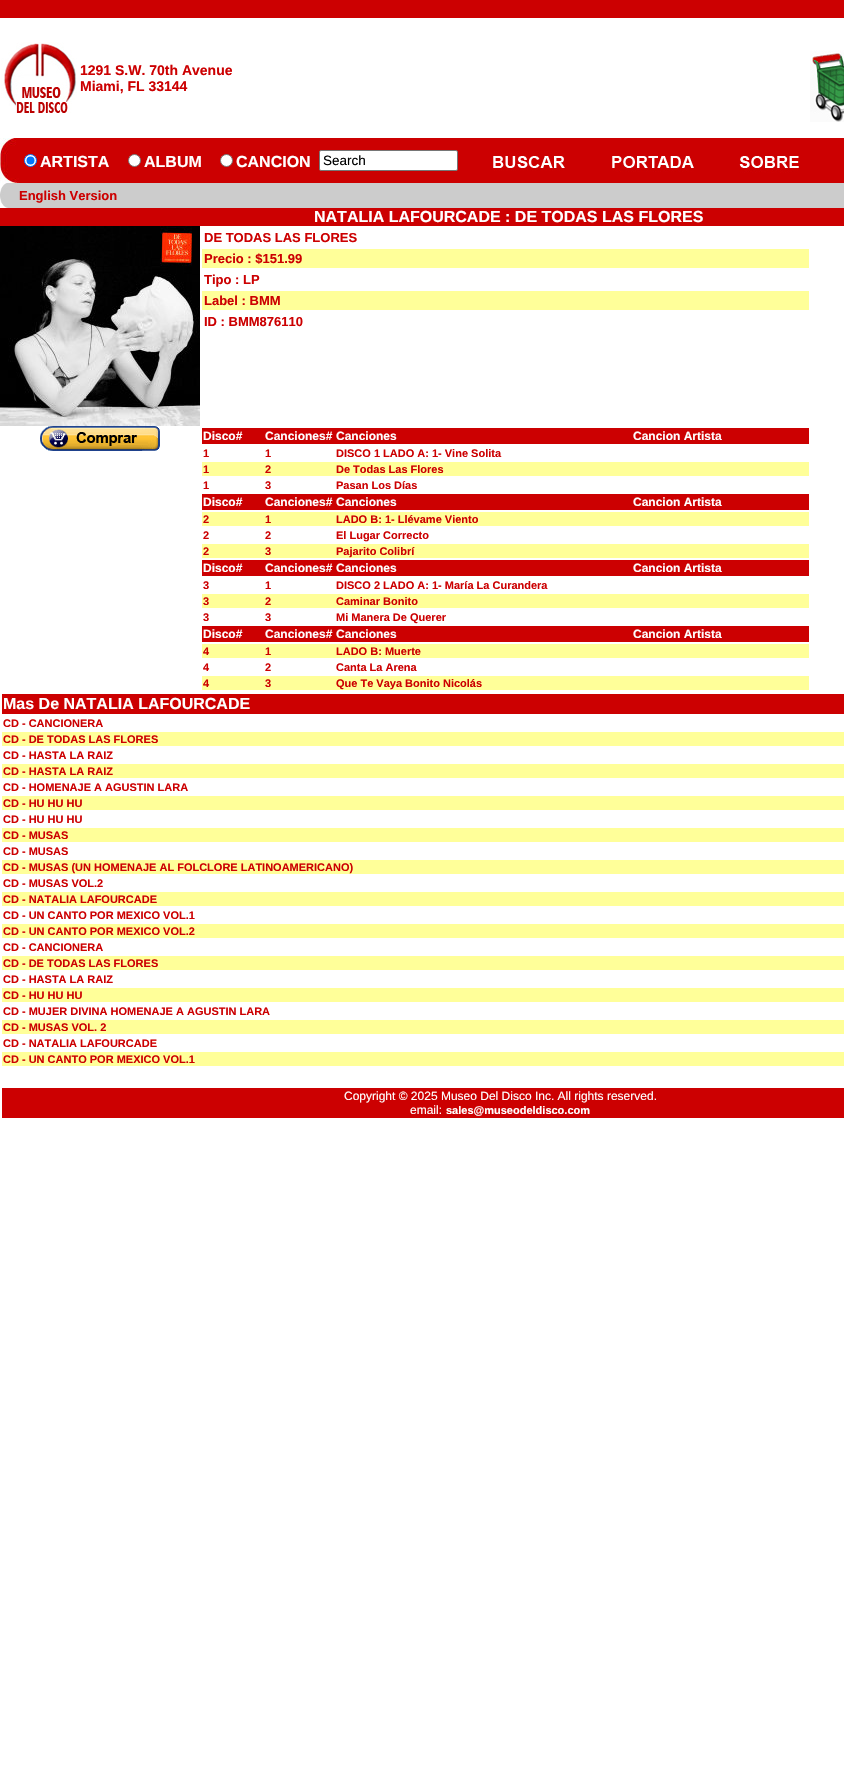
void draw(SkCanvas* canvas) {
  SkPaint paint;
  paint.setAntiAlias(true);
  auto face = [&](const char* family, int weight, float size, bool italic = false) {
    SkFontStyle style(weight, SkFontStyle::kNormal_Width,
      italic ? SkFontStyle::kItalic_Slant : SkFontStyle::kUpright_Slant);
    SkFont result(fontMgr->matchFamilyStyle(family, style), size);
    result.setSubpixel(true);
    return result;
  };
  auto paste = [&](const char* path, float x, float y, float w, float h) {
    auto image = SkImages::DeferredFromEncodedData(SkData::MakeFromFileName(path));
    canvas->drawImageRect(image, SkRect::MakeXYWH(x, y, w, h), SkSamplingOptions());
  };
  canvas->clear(0xffffffff);
  paint.setColor(0xffcc0001);
  canvas->drawRect(SkRect::MakeXYWH(0, 0, 844, 18), paint);
  paste("img/1.png", 1, 42, 76, 71);
  paste("img/2.png", 810, 50, 34, 72);
  paste("img/3.png", 0, 138, 19, 45);
  canvas->drawRect(SkRect::MakeXYWH(19, 138, 825, 45), paint);
  paint.setColor(0xffffffff);
  canvas->drawCircle(30.5f, 160.5f, 6, paint);
  paint.setStroke(true);
  paint.setStrokeWidth(1);
  paint.setColor(0xff0075ff);
  canvas->drawCircle(30.5f, 160.5f, 6, paint);
  paint.setStroke(false);
  canvas->drawCircle(30.5f, 160.5f, 4, paint);
  paint.setColor(0xffffffff);
  canvas->drawCircle(134.5f, 160.5f, 6, paint);
  paint.setStroke(true);
  paint.setColor(0xff767676);
  canvas->drawCircle(134.5f, 160.5f, 6, paint);
  paint.setStroke(false);
  paint.setColor(0xffffffff);
  canvas->drawCircle(226.5f, 160.5f, 6, paint);
  paint.setStroke(true);
  paint.setColor(0xff767676);
  canvas->drawCircle(226.5f, 160.5f, 6, paint);
  paint.setStroke(false);
  paint.setColor(0xffffffff);
  canvas->drawRoundRect(SkRect::MakeXYWH(319.5f, 150.5f, 138, 20), 1.5f, 1.5f, paint);
  paint.setStroke(true);
  paint.setColor(0xff767676);
  canvas->drawRoundRect(SkRect::MakeXYWH(319.5f, 150.5f, 138, 20), 1.5f, 1.5f, paint);
  paste("img/4.png", 493, 151, 72, 20);
  paste("img/5.png", 612, 156, 82, 16);
  paste("img/6.png", 739, 156, 60, 17);
  paint.setStroke(false);
  paint.setColor(0xffcccccc);
  canvas->drawRect(SkRect::MakeXYWH(8, 183, 836, 25), paint);
  paste("img/7.png", 0, 183, 8, 25);
  paint.setColor(0xffcc0001);
  canvas->drawRect(SkRect::MakeXYWH(0, 208, 844, 18), paint);
  paste("img/8.png", 0, 226, 200, 200);
  paint.setColor(0xffffff99);
  canvas->drawRect(SkRect::MakeXYWH(202, 249, 607, 19), paint);
  canvas->drawRect(SkRect::MakeXYWH(202, 291, 607, 19), paint);
  paste("img/9.png", 40, 426, 120, 25);
  {
    const struct { float x, y, w, h; SkColor color; } items[] = {
      {202, 428, 607, 16, 0xffcc0001},
      {202, 462, 607, 14, 0xffffff99},
      {202, 494, 607, 16, 0xffcc0001},
      {202, 512, 607, 14, 0xffffff99},
      {202, 544, 607, 14, 0xffffff99},
      {202, 560, 607, 16, 0xffcc0001},
      {202, 594, 607, 14, 0xffffff99},
      {202, 626, 607, 16, 0xffcc0001},
      {202, 644, 607, 14, 0xffffff99},
      {202, 676, 607, 14, 0xffffff99},
      {2, 694, 842, 20, 0xffcc0001},
      {2, 732, 842, 14, 0xffffff99},
      {2, 764, 842, 14, 0xffffff99},
      {2, 796, 842, 14, 0xffffff99},
      {2, 828, 842, 14, 0xffffff99},
      {2, 860, 842, 14, 0xffffff99},
      {2, 892, 842, 14, 0xffffff99},
      {2, 924, 842, 14, 0xffffff99},
      {2, 956, 842, 14, 0xffffff99},
      {2, 988, 842, 14, 0xffffff99},
      {2, 1020, 842, 14, 0xffffff99},
      {2, 1052, 842, 14, 0xffffff99},
      {2, 1088, 842, 30, 0xffcc0001},
    };
    for (auto [x, y, w, h, color] : items) {
      paint.setColor(color);
      canvas->drawRect(SkRect::MakeXYWH(x, y, w, h), paint);
    }
  }
  auto f0 = face("Liberation Sans", 700, 14);
  canvas->drawString("1291 S.W. 70th Avenue", 80, 75, f0, paint);
  canvas->drawString("Miami, FL 33144", 80, 91, f0, paint);
  auto f1 = face("Liberation Sans", 700, 16);
  paint.setColor(0xffffffff);
  {
    const struct { const char* s; float x, y; } items[] = {
      {"ARTISTA", 40, 167},
      {"ALBUM", 144, 167},
      {"CANCION", 236, 167},
    };
    for (auto [s, x, y] : items) {
      canvas->drawString(s, x, y, f1, paint);
    }
  }
  auto f2 = face("Liberation Sans", 400, 13.5f);
  paint.setColor(0xff000000);
  canvas->drawString("Search", 323, 165, f2, paint);
  auto f3 = face("Liberation Sans", 700, 13);
  paint.setColor(0xffcc0001);
  canvas->drawString("English Version", 19, 200, f3, paint);
  paint.setColor(0xffffffff);
  canvas->drawString("NATALIA LAFOURCADE : DE TODAS LAS FLORES", 314, 222, f1, paint);
  paint.setColor(0xffcc0001);
  {
    const struct { const char* s; float x, y; } items[] = {
      {"DE TODAS LAS FLORES", 204, 242},
      {"Precio : $151.99", 204, 263},
      {"Tipo : LP", 204, 284},
      {"Label : BMM", 204, 305},
      {"ID : BMM876110", 204, 326},
    };
    for (auto [s, x, y] : items) {
      canvas->drawString(s, x, y, f3, paint);
    }
  }
  auto f4 = face("Liberation Sans", 700, 12);
  paint.setColor(0xffffffff);
  {
    const struct { const char* s; float x, y; } items[] = {
      {"Disco#", 203, 440},
      {"Canciones#", 265, 440},
      {"Canciones", 336, 440},
      {"Cancion Artista", 633, 440},
    };
    for (auto [s, x, y] : items) {
      canvas->drawString(s, x, y, f4, paint);
    }
  }
  auto f5 = face("Liberation Sans", 700, 11);
  paint.setColor(0xffcc0001);
  {
    const struct { const char* s; float x, y; } items[] = {
      {"1", 203, 457},
      {"1", 265, 457},
      {"DISCO 1 LADO A: 1- Vine Solita", 336, 457},
      {"1", 203, 473},
      {"2", 265, 473},
      {"De Todas Las Flores", 336, 473},
      {"1", 203, 489},
      {"3", 265, 489},
      {"Pasan Los Días", 336, 489},
    };
    for (auto [s, x, y] : items) {
      canvas->drawString(s, x, y, f5, paint);
    }
  }
  paint.setColor(0xffffffff);
  {
    const struct { const char* s; float x, y; } items[] = {
      {"Disco#", 203, 506},
      {"Canciones#", 265, 506},
      {"Canciones", 336, 506},
      {"Cancion Artista", 633, 506},
    };
    for (auto [s, x, y] : items) {
      canvas->drawString(s, x, y, f4, paint);
    }
  }
  paint.setColor(0xffcc0001);
  {
    const struct { const char* s; float x, y; } items[] = {
      {"2", 203, 523},
      {"1", 265, 523},
      {"LADO B: 1- Llévame Viento", 336, 523},
      {"2", 203, 539},
      {"2", 265, 539},
      {"El Lugar Correcto", 336, 539},
      {"2", 203, 555},
      {"3", 265, 555},
      {"Pajarito Colibrí", 336, 555},
    };
    for (auto [s, x, y] : items) {
      canvas->drawString(s, x, y, f5, paint);
    }
  }
  paint.setColor(0xffffffff);
  {
    const struct { const char* s; float x, y; } items[] = {
      {"Disco#", 203, 572},
      {"Canciones#", 265, 572},
      {"Canciones", 336, 572},
      {"Cancion Artista", 633, 572},
    };
    for (auto [s, x, y] : items) {
      canvas->drawString(s, x, y, f4, paint);
    }
  }
  paint.setColor(0xffcc0001);
  {
    const struct { const char* s; float x, y; } items[] = {
      {"3", 203, 589},
      {"1", 265, 589},
      {"DISCO 2 LADO A: 1- María La Curandera", 336, 589},
      {"3", 203, 605},
      {"2", 265, 605},
      {"Caminar Bonito", 336, 605},
      {"3", 203, 621},
      {"3", 265, 621},
      {"Mi Manera De Querer", 336, 621},
    };
    for (auto [s, x, y] : items) {
      canvas->drawString(s, x, y, f5, paint);
    }
  }
  paint.setColor(0xffffffff);
  {
    const struct { const char* s; float x, y; } items[] = {
      {"Disco#", 203, 638},
      {"Canciones#", 265, 638},
      {"Canciones", 336, 638},
      {"Cancion Artista", 633, 638},
    };
    for (auto [s, x, y] : items) {
      canvas->drawString(s, x, y, f4, paint);
    }
  }
  paint.setColor(0xffcc0001);
  {
    const struct { const char* s; float x, y; } items[] = {
      {"4", 203, 655},
      {"1", 265, 655},
      {"LADO B: Muerte", 336, 655},
      {"4", 203, 671},
      {"2", 265, 671},
      {"Canta La Arena", 336, 671},
      {"4", 203, 687},
      {"3", 265, 687},
      {"Que Te Vaya Bonito Nicolás", 336, 687},
    };
    for (auto [s, x, y] : items) {
      canvas->drawString(s, x, y, f5, paint);
    }
  }
  paint.setColor(0xffffffff);
  canvas->drawString("Mas De NATALIA LAFOURCADE", 3, 709, f1, paint);
  paint.setColor(0xffcc0001);
  {
    const struct { const char* s; float x, y; } items[] = {
      {"CD - CANCIONERA", 3, 727},
      {"CD - DE TODAS LAS FLORES", 3, 743},
      {"CD - HASTA LA RAIZ", 3, 759},
      {"CD - HASTA LA RAIZ", 3, 775},
      {"CD - HOMENAJE A AGUSTIN LARA", 3, 791},
      {"CD - HU HU HU", 3, 807},
      {"CD - HU HU HU", 3, 823},
      {"CD - MUSAS", 3, 839},
      {"CD - MUSAS", 3, 855},
      {"CD - MUSAS (UN HOMENAJE AL FOLCLORE LATINOAMERICANO)", 3, 871},
      {"CD - MUSAS VOL.2", 3, 887},
      {"CD - NATALIA LAFOURCADE", 3, 903},
      {"CD - UN CANTO POR MEXICO VOL.1", 3, 919},
      {"CD - UN CANTO POR MEXICO VOL.2", 3, 935},
      {"CD - CANCIONERA", 3, 951},
      {"CD - DE TODAS LAS FLORES", 3, 967},
      {"CD - HASTA LA RAIZ", 3, 983},
      {"CD - HU HU HU", 3, 999},
      {"CD - MUJER DIVINA HOMENAJE A AGUSTIN LARA", 3, 1015},
      {"CD - MUSAS VOL. 2", 3, 1031},
      {"CD - NATALIA LAFOURCADE", 3, 1047},
      {"CD - UN CANTO POR MEXICO VOL.1", 3, 1063},
    };
    for (auto [s, x, y] : items) {
      canvas->drawString(s, x, y, f5, paint);
    }
  }
  auto f6 = face("Liberation Sans", 400, 12);
  paint.setColor(0xffffffff);
  canvas->drawString("Copyright © 2025 Museo Del Disco Inc. All rights reserved.", 344, 1100, f6, paint);
  canvas->drawString("email:", 410, 1114, f6, paint);
  canvas->drawString("sales@museodeldisco.com", 446, 1114, f5, paint);
}
